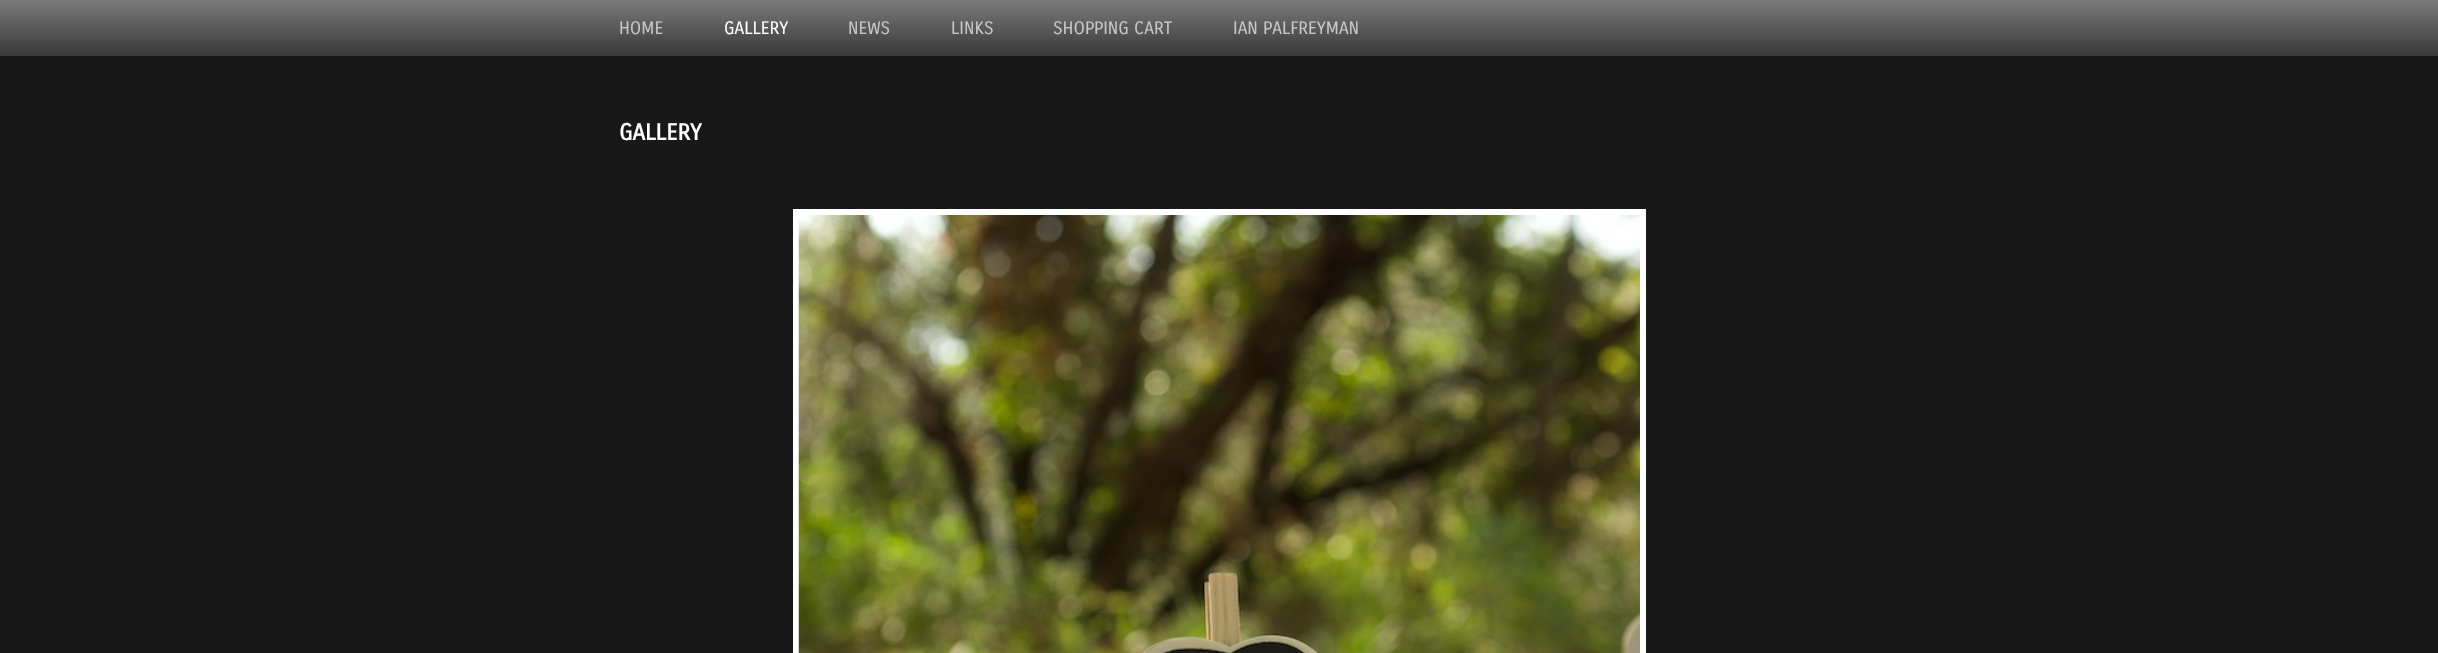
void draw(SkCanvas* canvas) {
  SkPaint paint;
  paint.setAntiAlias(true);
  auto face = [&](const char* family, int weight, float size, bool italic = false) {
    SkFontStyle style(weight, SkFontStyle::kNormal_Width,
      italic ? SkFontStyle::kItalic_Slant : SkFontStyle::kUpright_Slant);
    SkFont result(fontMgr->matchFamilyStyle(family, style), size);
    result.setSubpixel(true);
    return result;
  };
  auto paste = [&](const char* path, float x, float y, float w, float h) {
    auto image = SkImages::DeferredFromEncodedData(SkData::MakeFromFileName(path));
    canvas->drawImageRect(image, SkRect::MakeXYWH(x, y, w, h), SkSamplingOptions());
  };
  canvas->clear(0xff181818);
  {
    const SkColor colors[] = {0xff7b7b7b, 0xff393838};
    const float stops[] = {0, 1};
    const SkPoint ends[] = {{1219, 0}, {1219, 56}};
    paint.setShader(SkGradientShader::MakeLinear(ends, colors, stops, 2, SkTileMode::kClamp));
    paint.setAlpha(255);
  }
  canvas->drawRect(SkRect::MakeXYWH(0, 0, 2438, 56), paint);
  paint.setStroke(true);
  paint.setStrokeWidth(6);
  paint.setShader(nullptr);
  paint.setColor(0xffffffff);
  canvas->drawRect(SkRect::MakeXYWH(796, 212, 847, 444), paint);
  paste("img/1.png", 798, 215, 842, 438);
  auto f0 = face("Carrois Gothic", 400, 17.5f);
  paint.setStroke(false);
  paint.setColor(0xffc8c8c8);
  canvas->drawString("HOME", 619, 34, f0, paint);
  paint.setColor(0xffffffff);
  canvas->drawString("GALLERY", 724, 34, f0, paint);
  paint.setColor(0xffc8c8c8);
  {
    const struct { const char* s; float x, y; } items[] = {
      {"NEWS", 848, 34},
      {"LINKS", 951, 34},
      {"SHOPPING CART", 1053, 34},
      {"IAN PALFREYMAN", 1233, 34},
    };
    for (auto [s, x, y] : items) {
      canvas->drawString(s, x, y, f0, paint);
    }
  }
  auto f1 = face("Carrois Gothic", 700, 22.5f);
  paint.setColor(0xffffffff);
  canvas->drawString("GALLERY", 619, 140, f1, paint);
}
